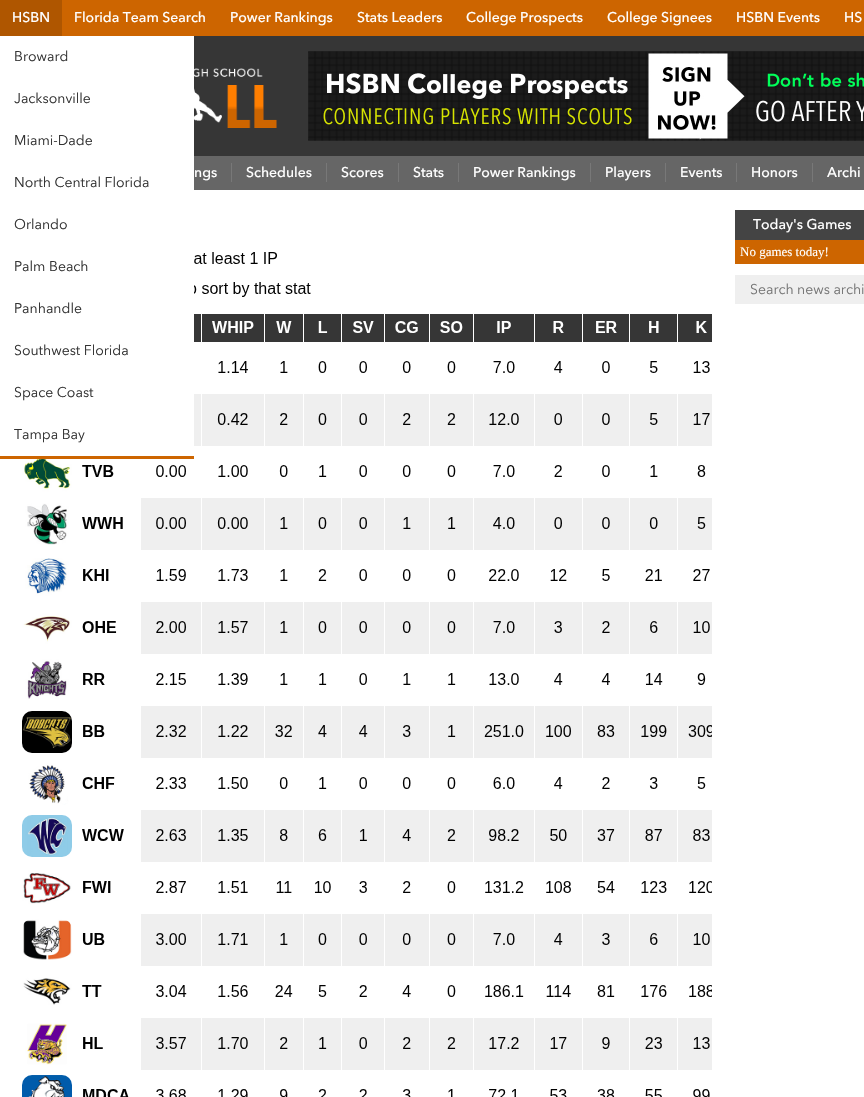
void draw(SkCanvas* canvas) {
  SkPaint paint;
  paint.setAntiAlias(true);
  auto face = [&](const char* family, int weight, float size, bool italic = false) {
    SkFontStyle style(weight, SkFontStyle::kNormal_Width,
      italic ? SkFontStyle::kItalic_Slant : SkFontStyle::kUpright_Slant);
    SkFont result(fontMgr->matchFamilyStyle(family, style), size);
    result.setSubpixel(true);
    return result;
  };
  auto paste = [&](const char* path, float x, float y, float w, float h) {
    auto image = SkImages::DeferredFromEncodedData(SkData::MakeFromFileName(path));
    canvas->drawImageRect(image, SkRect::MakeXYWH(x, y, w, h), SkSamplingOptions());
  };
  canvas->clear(0xffffffff);
  paint.setColor(0xffcd6500);
  canvas->drawRect(SkRect::MakeXYWH(62, 0, 802, 36), paint);
  paint.setColor(0xffaf5600);
  canvas->drawRect(SkRect::MakeXYWH(0, 0, 62, 36), paint);
  paste("img/3.png", 12, 252, 700, 845);
  {
    const struct { float x, y, w, h; SkColor color; } items[] = {
      {12, 252, 182, 194, 0xffffffff},
      {0, 456, 194, 3, 0xffcd6500},
      {194, 36, 670, 120, 0xff363636},
    };
    for (auto [x, y, w, h, color] : items) {
      paint.setColor(color);
      canvas->drawRect(SkRect::MakeXYWH(x, y, w, h), paint);
    }
  }
  paste("img/1.png", 194, 68, 83, 60);
  paste("img/2.png", 308, 51, 556, 90);
  {
    const struct { float x, y, w, h; SkColor color; } items[] = {
      {194, 156, 670, 34, 0xff666666},
      {231, 163, 1, 19, 0xff787878},
      {326, 163, 1, 19, 0xff787878},
      {398, 163, 1, 19, 0xff787878},
      {458, 163, 1, 19, 0xff787878},
      {590, 163, 1, 19, 0xff787878},
      {665, 163, 1, 19, 0xff787878},
      {736, 163, 1, 19, 0xff787878},
      {812, 163, 1, 19, 0xff787878},
      {735, 210, 129, 30, 0xff444444},
      {735, 240, 129, 24, 0xffcd6500},
      {735, 275, 129, 29, 0xffefefef},
    };
    for (auto [x, y, w, h, color] : items) {
      paint.setColor(color);
      canvas->drawRect(SkRect::MakeXYWH(x, y, w, h), paint);
    }
  }
  auto f0 = face("Avenir Next", 500, 14);
  paint.setColor(0xffffffff);
  canvas->drawString("HSBN", 12, 22, f0, paint);
  auto f1 = face("Avenir Next", 400, 14);
  paint.setColor(0xff333333);
  {
    const struct { const char* s; float x, y; } items[] = {
      {"Broward", 14, 61},
      {"Jacksonville", 14, 103},
      {"Miami-Dade", 14, 145},
      {"North Central Florida", 14, 187},
      {"Orlando", 14, 229},
      {"Palm Beach", 14, 271},
      {"Panhandle", 14, 313},
      {"Southwest Florida", 14, 355},
      {"Space Coast", 14, 397},
      {"Tampa Bay", 14, 439},
    };
    for (auto [s, x, y] : items) {
      canvas->drawString(s, x, y, f1, paint);
    }
  }
  paint.setColor(0xffffffff);
  {
    const struct { const char* s; float x, y; } items[] = {
      {"Florida Team Search", 74, 22},
      {"Power Rankings", 230, 22},
      {"Stats Leaders", 357, 22},
      {"College Prospects", 466, 22},
      {"College Signees", 607, 22},
      {"HSBN Events", 736, 22},
      {"HS", 844, 22},
      {"ngs", 194, 177},
      {"Schedules", 246, 177},
      {"Scores", 341, 177},
      {"Stats", 413, 177},
      {"Power Rankings", 473, 177},
      {"Players", 605, 177},
      {"Events", 680, 177},
      {"Honors", 751, 177},
      {"Archi", 827, 177},
      {"Today's Games", 753, 229},
    };
    for (auto [s, x, y] : items) {
      canvas->drawString(s, x, y, f0, paint);
    }
  }
  auto f2 = face("Liberation Serif", 400, 13);
  canvas->drawString("No games today!", 740, 256, f2, paint);
  paint.setColor(0xff757575);
  canvas->drawString("Search news archi", 750, 294, f1, paint);
}
